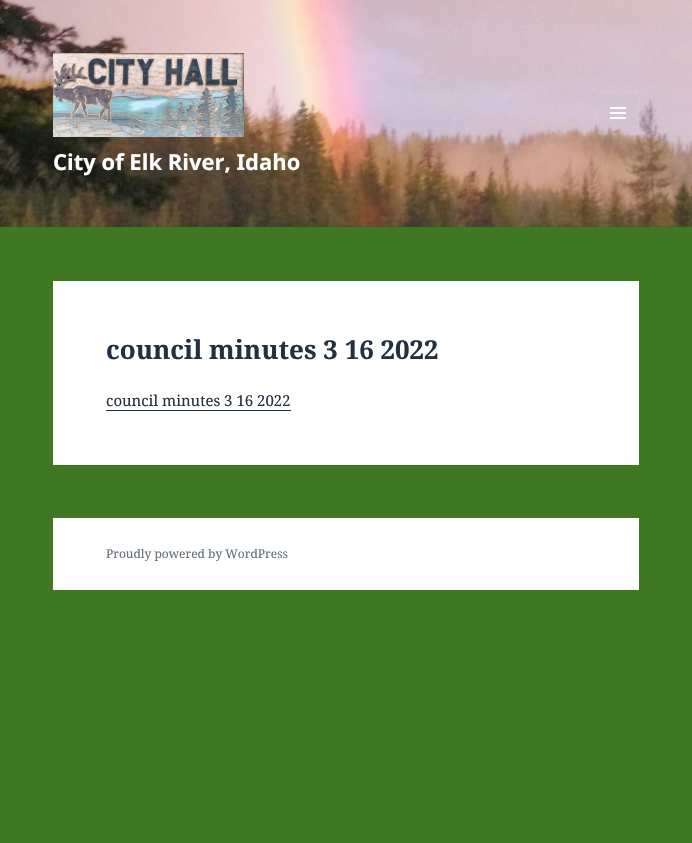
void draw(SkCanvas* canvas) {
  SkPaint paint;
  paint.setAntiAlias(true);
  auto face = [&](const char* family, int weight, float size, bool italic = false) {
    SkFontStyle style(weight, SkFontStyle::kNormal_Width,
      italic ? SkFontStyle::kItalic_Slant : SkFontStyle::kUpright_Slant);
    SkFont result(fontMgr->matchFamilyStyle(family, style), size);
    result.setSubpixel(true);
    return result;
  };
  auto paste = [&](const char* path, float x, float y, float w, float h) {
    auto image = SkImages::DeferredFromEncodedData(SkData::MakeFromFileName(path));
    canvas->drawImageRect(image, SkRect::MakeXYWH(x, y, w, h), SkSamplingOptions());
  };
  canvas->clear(0xff407722);
  paste("img/1.png", 0, 0, 692, 227);
  paint.setColor(0x1a22313f);
  canvas->drawRect(SkRect::MakeXYWH(0, 226, 692, 1), paint);
  paste("img/2.png", 53, 53, 191, 84);
  paint.setStroke(true);
  paint.setStrokeWidth(1);
  paint.setColor(0x1affffff);
  canvas->drawRect(SkRect::MakeXYWH(597.5f, 92.5f, 41, 41), paint);
  paste("img/3.png", 610, 107, 16, 12);
  paint.setStroke(false);
  {
    const struct { float x, y, w, h; SkColor color; } items[] = {
      {53, 281, 586, 184, 0xffffffff},
      {106, 410, 185, 1, 0xff22313f},
      {53, 518, 586, 72, 0xffffffff},
    };
    for (auto [x, y, w, h, color] : items) {
      paint.setColor(color);
      canvas->drawRect(SkRect::MakeXYWH(x, y, w, h), paint);
    }
  }
  auto f0 = face("Noto Sans", 700, 22);
  canvas->drawString("City of Elk River, Idaho", 53, 170, f0, paint);
  auto f1 = face("Noto Serif", 700, 26);
  paint.setColor(0xff22313f);
  canvas->drawString("council minutes 3 16 2022", 106, 359, f1, paint);
  auto f2 = face("Noto Serif", 400, 15);
  canvas->drawString("council minutes 3 16 2022", 106, 406, f2, paint);
  auto f3 = face("Noto Serif", 400, 12);
  paint.setColor(0xff646f79);
  canvas->drawString("Proudly powered by WordPress", 106, 558, f3, paint);
}
